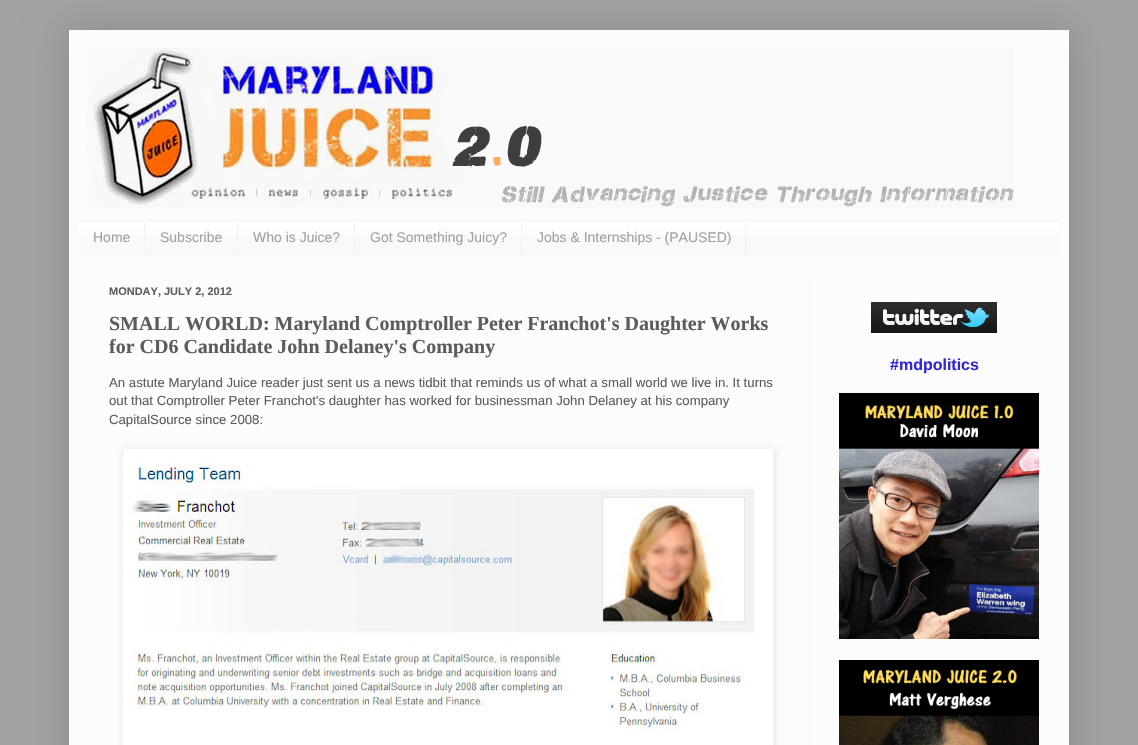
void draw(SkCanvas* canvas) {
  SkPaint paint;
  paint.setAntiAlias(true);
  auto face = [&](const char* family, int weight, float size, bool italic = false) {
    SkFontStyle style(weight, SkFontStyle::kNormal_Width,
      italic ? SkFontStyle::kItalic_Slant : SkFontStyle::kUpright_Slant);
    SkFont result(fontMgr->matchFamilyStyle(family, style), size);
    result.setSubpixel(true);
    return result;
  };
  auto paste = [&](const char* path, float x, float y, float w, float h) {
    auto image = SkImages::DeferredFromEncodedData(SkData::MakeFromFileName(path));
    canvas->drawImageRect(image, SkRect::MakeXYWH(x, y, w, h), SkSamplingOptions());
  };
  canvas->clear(0xffa2a2a2);
  paint.setColor(0x26000000);
  paint.setMaskFilter(SkMaskFilter::MakeBlur(kNormal_SkBlurStyle, 20));
  canvas->drawRect(SkRect::MakeXYWH(69, 30, 1000, 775), paint);
  paint.setMaskFilter(nullptr);
  paint.setColor(0xfffcfcfc);
  canvas->drawRect(SkRect::MakeXYWH(69, 30, 1000, 715), paint);
  paste("img/1.png", 87, 48, 927, 160);
  paint.setColor(0xfff9f9f9);
  canvas->drawRect(SkRect::MakeXYWH(79, 222, 980, 32), paint);
  paste("img/2.png", 79, 221, 980, 14);
  {
    const struct { float x, y, w, h; SkColor color; } items[] = {
      {79, 220, 980, 1, 0xfff2f2f2},
      {79, 254, 980, 1, 0xfff2f2f2},
      {144, 221, 1, 33, 0xfff2f2f2},
      {237, 221, 1, 33, 0xfff2f2f2},
      {145, 221, 1, 33, 0xfffcfcfc},
      {354, 221, 1, 33, 0xfff2f2f2},
      {238, 221, 1, 33, 0xfffcfcfc},
      {521, 221, 1, 33, 0xfff2f2f2},
      {355, 221, 1, 33, 0xfffcfcfc},
      {745, 221, 1, 33, 0xfff2f2f2},
      {522, 221, 1, 33, 0xfffcfcfc},
      {809, 285, 1, 460, 0xfff2f2f2},
    };
    for (auto [x, y, w, h, color] : items) {
      paint.setColor(color);
      canvas->drawRect(SkRect::MakeXYWH(x, y, w, h), paint);
    }
  }
  paint.setColor(0x1a000000);
  paint.setMaskFilter(SkMaskFilter::MakeBlur(kNormal_SkBlurStyle, 2.5f));
  canvas->drawRect(SkRect::MakeXYWH(123, 449, 652, 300), paint);
  paint.setMaskFilter(nullptr);
  paint.setColor(0xffffffff);
  canvas->drawRect(SkRect::MakeXYWH(122.5f, 448.5f, 651, 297), paint);
  paint.setStroke(true);
  paint.setStrokeWidth(1);
  paint.setColor(0xfff2f2f2);
  canvas->drawRect(SkRect::MakeXYWH(122.5f, 448.5f, 651, 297), paint);
  paste("img/3.png", 128, 462, 627, 271);
  paste("img/4.png", 871, 302, 126, 31);
  paste("img/5.png", 839, 393, 200, 246);
  paste("img/6.png", 839, 660, 200, 85);
  auto f0 = face("Liberation Sans", 400, 14);
  paint.setStroke(false);
  paint.setColor(0xffa2a2a2);
  {
    const struct { const char* s; float x, y; } items[] = {
      {"Home", 93, 242},
      {"Subscribe", 160, 242},
      {"Who is Juice?", 253, 242},
      {"Got Something Juicy?", 370, 242},
      {"Jobs & Internships - (PAUSED)", 537, 242},
    };
    for (auto [s, x, y] : items) {
      canvas->drawString(s, x, y, f0, paint);
    }
  }
  auto f1 = face("Liberation Sans", 700, 11);
  paint.setColor(0xff5c5c5c);
  canvas->drawString("MONDAY, JULY 2, 2012", 109, 295, f1, paint);
  auto f2 = face("Liberation Serif", 700, 20);
  canvas->drawString("SMALL WORLD: Maryland Comptroller Peter Franchot's Daughter Works", 109, 330, f2, paint);
  canvas->drawString("for CD6 Candidate John Delaney's Company", 109, 353, f2, paint);
  auto f3 = face("Liberation Sans", 400, 13.2f);
  {
    const struct { const char* s; float x, y; } items[] = {
      {"An astute Maryland Juice reader just sent us a news tidbit that reminds us of what a small world we live in. It turns", 109, 387},
      {"out that Comptroller Peter Franchot's daughter has worked for businessman John Delaney at his company", 109, 405},
      {"CapitalSource since 2008:", 109, 424},
    };
    for (auto [s, x, y] : items) {
      canvas->drawString(s, x, y, f3, paint);
    }
  }
  auto f4 = face("Liberation Sans", 700, 16);
  paint.setColor(0xff2f27d7);
  canvas->drawString("#mdpolitics", 890, 370, f4, paint);
}
